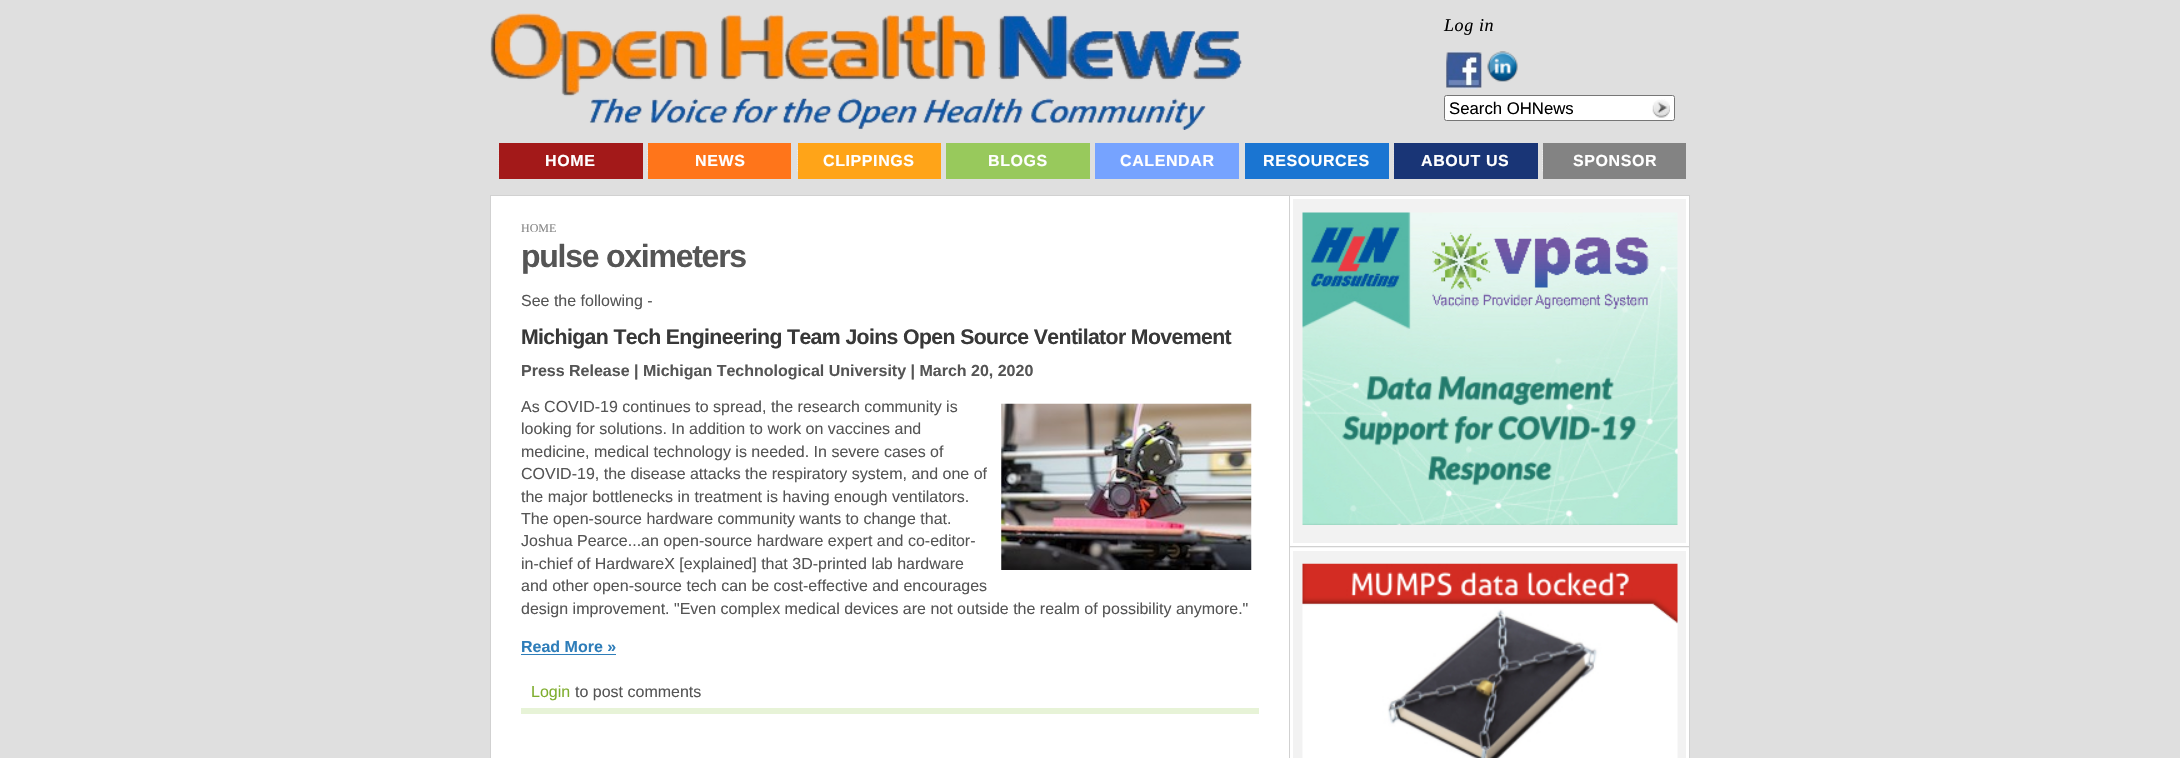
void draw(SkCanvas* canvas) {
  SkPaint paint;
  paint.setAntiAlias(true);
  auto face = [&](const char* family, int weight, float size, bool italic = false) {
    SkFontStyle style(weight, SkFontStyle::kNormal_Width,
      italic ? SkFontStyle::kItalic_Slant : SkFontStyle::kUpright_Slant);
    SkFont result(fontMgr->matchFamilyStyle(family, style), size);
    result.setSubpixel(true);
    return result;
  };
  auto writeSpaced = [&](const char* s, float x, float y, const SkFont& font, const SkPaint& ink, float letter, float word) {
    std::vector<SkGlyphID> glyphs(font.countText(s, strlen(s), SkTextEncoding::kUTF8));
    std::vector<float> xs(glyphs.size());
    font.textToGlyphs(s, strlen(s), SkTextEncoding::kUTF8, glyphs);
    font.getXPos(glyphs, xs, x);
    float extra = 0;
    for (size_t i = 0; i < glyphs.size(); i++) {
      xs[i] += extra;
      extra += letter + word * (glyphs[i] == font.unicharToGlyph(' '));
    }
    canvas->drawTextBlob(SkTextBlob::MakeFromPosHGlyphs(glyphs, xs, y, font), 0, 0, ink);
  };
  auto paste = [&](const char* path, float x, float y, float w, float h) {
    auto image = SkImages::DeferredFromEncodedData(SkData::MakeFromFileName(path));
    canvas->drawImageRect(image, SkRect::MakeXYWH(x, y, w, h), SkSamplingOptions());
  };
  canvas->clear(0xffdfdfdf);
  paste("img/1.png", 490, 13, 752, 117);
  paste("img/2.png", 1446, 51, 36, 38);
  paste("img/3.png", 1487, 51, 31, 31);
  paint.setColor(0xffffffff);
  canvas->drawRoundRect(SkRect::MakeXYWH(1444.5f, 95.5f, 230, 25), 2, 2, paint);
  paint.setStroke(true);
  paint.setStrokeWidth(1);
  paint.setColor(0xff767676);
  canvas->drawRoundRect(SkRect::MakeXYWH(1444.5f, 95.5f, 230, 25), 2, 2, paint);
  paste("img/4.png", 1652, 99, 18, 19);
  paste("img/5.png", 498, 150, 1, 22);
  paint.setStroke(false);
  paint.setColor(0xffa31919);
  canvas->drawRect(SkRect::MakeXYWH(499, 143, 144, 36), paint);
  paste("img/6.png", 647, 150, 1, 22);
  paint.setColor(0xffff751a);
  canvas->drawRect(SkRect::MakeXYWH(648, 143, 143, 36), paint);
  paste("img/6.png", 797, 150, 1, 22);
  {
    const struct { float x, y, w, h; SkColor color; } items[] = {
      {798, 143, 143, 36, 0xffffa418},
      {946, 143, 144, 36, 0xff98c95c},
      {1095, 143, 144, 36, 0xff76a3ff},
      {1245, 143, 144, 36, 0xff1a75d2},
    };
    for (auto [x, y, w, h, color] : items) {
      paint.setColor(color);
      canvas->drawRect(SkRect::MakeXYWH(x, y, w, h), paint);
    }
  }
  paste("img/5.png", 1393, 150, 1, 22);
  paint.setColor(0xff193576);
  canvas->drawRect(SkRect::MakeXYWH(1394, 143, 144, 36), paint);
  paste("img/6.png", 1542, 150, 1, 22);
  paint.setColor(0xff838383);
  canvas->drawRect(SkRect::MakeXYWH(1543, 143, 143, 36), paint);
  paint.setColor(0xffffffff);
  canvas->drawRect(SkRect::MakeXYWH(491, 196, 798, 562), paint);
  paint.setStroke(true);
  paint.setColor(0xffd1d1d1);
  canvas->drawRect(SkRect::MakeXYWH(490.5f, 195.5f, 1199, 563), paint);
  paste("img/7.png", 1001, 403, 251, 167);
  paint.setStroke(false);
  {
    const struct { float x, y, w, h; SkColor color; } items[] = {
      {521, 654, 95, 1, 0xff2e7db9},
      {521, 708, 738, 6, 0xffe7f3d7},
      {1289, 196, 1, 562, 0xffd1d1d1},
    };
    for (auto [x, y, w, h, color] : items) {
      paint.setColor(color);
      canvas->drawRect(SkRect::MakeXYWH(x, y, w, h), paint);
    }
  }
  paint.setColor(0xfff2f2f2);
  canvas->drawRect(SkRect::MakeXYWH(1291.5f, 197.5f, 396, 347), paint);
  paint.setStroke(true);
  paint.setStrokeWidth(3);
  paint.setColor(0xffffffff);
  canvas->drawRect(SkRect::MakeXYWH(1291.5f, 197.5f, 396, 347), paint);
  paste("img/8.png", 1302, 212, 376, 313);
  paint.setStroke(false);
  paint.setColor(0xfff2f2f2);
  canvas->drawRect(SkRect::MakeXYWH(1290, 547, 399, 211), paint);
  paint.setColor(0xffd1d1d1);
  canvas->drawRect(SkRect::MakeXYWH(1290, 546, 399, 1), paint);
  paint.setStroke(true);
  paint.setColor(0xffffffff);
  canvas->drawRect(SkRect::MakeXYWH(1291.5f, 549.5f, 396, 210), paint);
  paste("img/9.png", 1302, 563, 376, 195);
  auto f0 = face("Liberation Serif", 400, 18, true);
  paint.setStroke(false);
  paint.setColor(0xff000000);
  writeSpaced("Log in", 1444, 31, f0, paint, 0.6f, 0);
  auto f1 = face("Liberation Sans", 400, 16.75f);
  canvas->drawString("Search OHNews", 1449, 114, f1, paint);
  auto f2 = face("Liberation Sans", 700, 16);
  paint.setColor(0xffffffff);
  {
    const struct { const char* s; float x, y; } items[] = {
      {"HOME", 545, 166},
      {"NEWS", 695, 166},
      {"CLIPPINGS", 823, 166},
      {"BLOGS", 988, 166},
      {"CALENDAR", 1120, 166},
      {"RESOURCES", 1263, 166},
      {"ABOUT US", 1421, 166},
      {"SPONSOR", 1573, 166},
    };
    for (auto [s, x, y] : items) {
      writeSpaced(s, x, y, f2, paint, 0.6f, 0);
    }
  }
  auto f3 = face("Liberation Serif", 400, 12);
  paint.setColor(0xff868686);
  canvas->drawString("HOME", 521, 232, f3, paint);
  auto f4 = face("Liberation Sans", 700, 32);
  paint.setColor(0xff555555);
  writeSpaced("pulse oximeters", 521, 267, f4, paint, -1.25f, 0);
  auto f5 = face("Liberation Sans", 400, 16);
  canvas->drawString("See the following -", 521, 306, f5, paint);
  auto f6 = face("Liberation Sans", 700, 21.25f);
  paint.setColor(0xff383838);
  writeSpaced("Michigan Tech Engineering Team Joins Open Source Ventilator Movement", 521, 344, f6, paint, -0.62f, 0);
  paint.setColor(0xff555555);
  canvas->drawString("Press Release | Michigan Technological University | March 20, 2020", 521, 376, f2, paint);
  {
    const struct { const char* s; float x, y; } items[] = {
      {"As COVID-19 continues to spread, the research community is", 521, 412},
      {"looking for solutions. In addition to work on vaccines and", 521, 434},
      {"medicine, medical technology is needed. In severe cases of", 521, 457},
      {"COVID-19, the disease attacks the respiratory system, and one of", 521, 479},
      {"the major bottlenecks in treatment is having enough ventilators.", 521, 502},
      {"The open-source hardware community wants to change that.", 521, 524},
      {"Joshua Pearce...an open-source hardware expert and co-editor-", 521, 546},
      {"in-chief of HardwareX [explained] that 3D-printed lab hardware", 521, 569},
      {"and other open-source tech can be cost-effective and encourages", 521, 591},
      {"design improvement. \"Even complex medical devices are not outside the realm of possibility anymore.\"", 521, 614},
    };
    for (auto [s, x, y] : items) {
      canvas->drawString(s, x, y, f5, paint);
    }
  }
  paint.setColor(0xff2e7db9);
  canvas->drawString("Read More »", 521, 652, f2, paint);
  paint.setColor(0xff7fae2f);
  canvas->drawString("Login", 531, 697, f5, paint);
  paint.setColor(0xff555555);
  canvas->drawString("to post comments", 575, 697, f5, paint);
}
